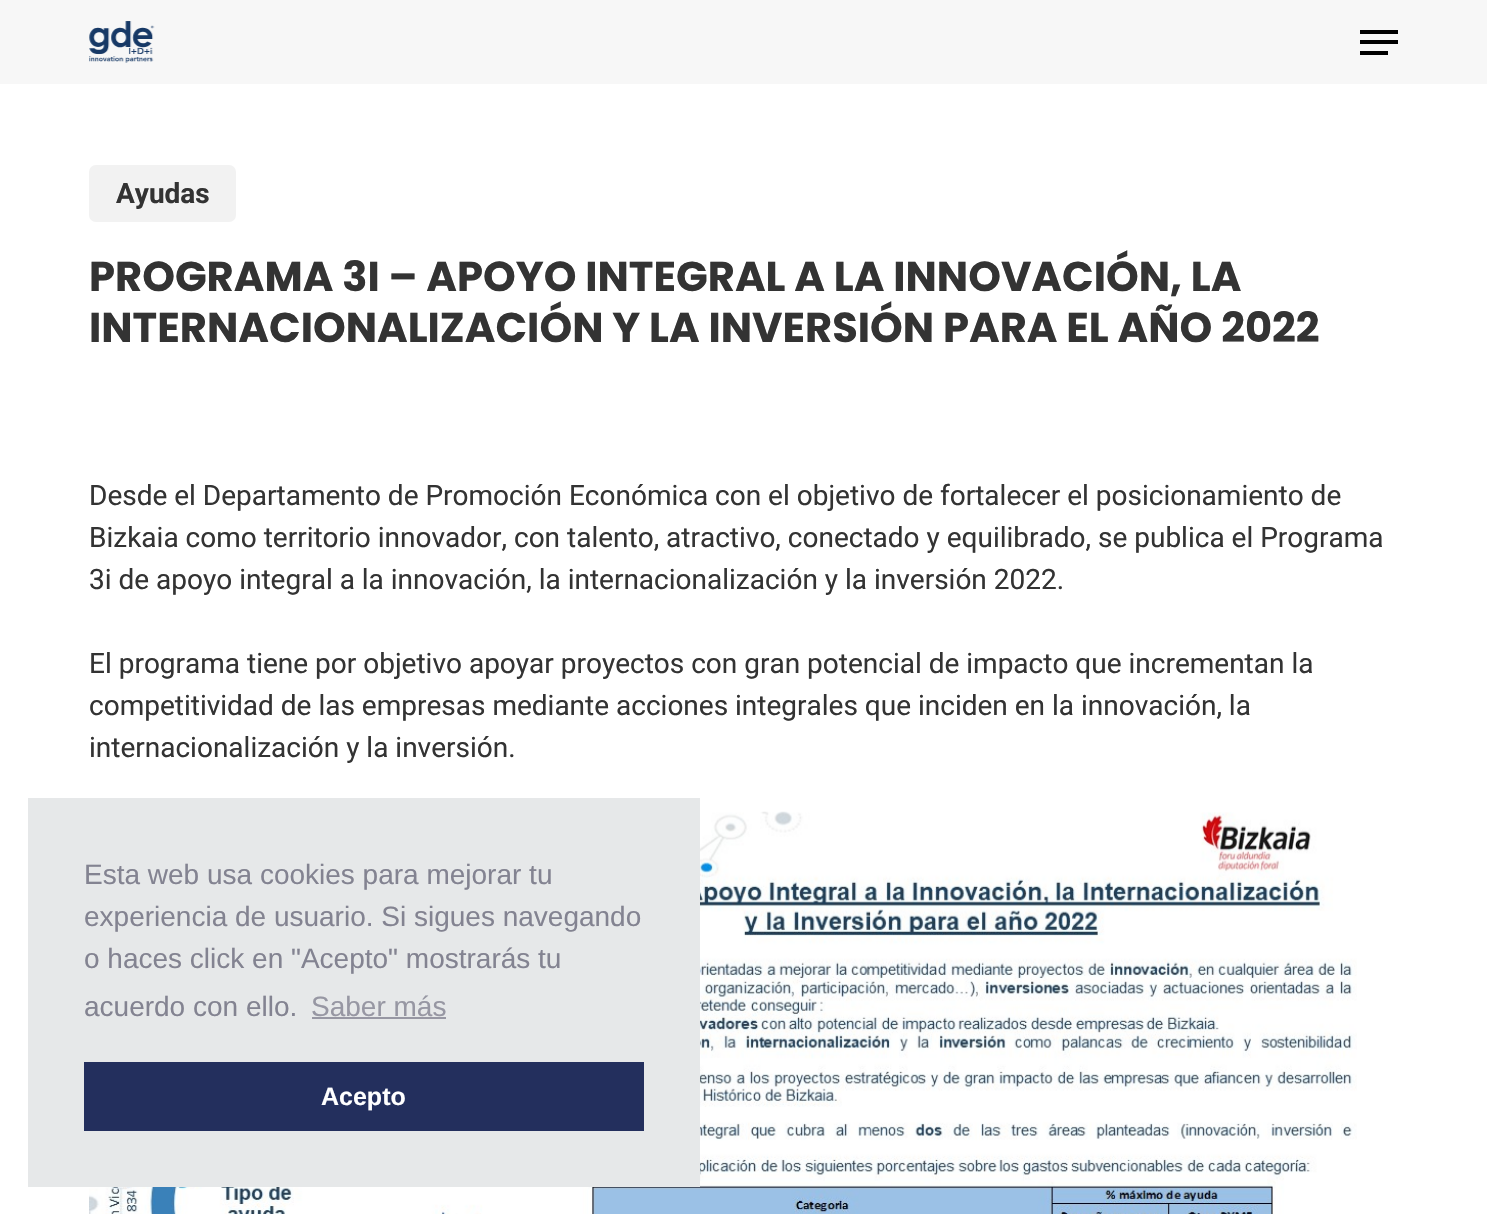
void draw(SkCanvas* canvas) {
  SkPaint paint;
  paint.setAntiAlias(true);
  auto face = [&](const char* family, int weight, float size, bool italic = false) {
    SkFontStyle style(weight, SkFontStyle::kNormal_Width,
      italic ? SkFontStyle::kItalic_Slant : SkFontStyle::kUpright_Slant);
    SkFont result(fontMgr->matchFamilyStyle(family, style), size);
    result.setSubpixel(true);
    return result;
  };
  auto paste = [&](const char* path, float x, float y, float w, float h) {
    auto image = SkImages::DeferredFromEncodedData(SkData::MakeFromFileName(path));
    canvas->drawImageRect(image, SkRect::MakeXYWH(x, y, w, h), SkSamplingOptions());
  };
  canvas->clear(0xffffffff);
  paint.setColor(0xfff7f7f7);
  canvas->drawRect(SkRect::MakeXYWH(0, 0, 1487, 84), paint);
  paste("img/1.png", 89, 21, 66, 42);
  {
    const struct { float x, y, w, h; SkColor color; } items[] = {
      {1360, 30, 38, 4, 0xff000000},
      {1360, 51, 28, 4, 0xff000000},
      {1360, 40, 38, 4, 0xff000000},
    };
    for (auto [x, y, w, h, color] : items) {
      paint.setColor(color);
      canvas->drawRect(SkRect::MakeXYWH(x, y, w, h), paint);
    }
  }
  paint.setColor(0xfff2f2f2);
  canvas->drawRoundRect(SkRect::MakeXYWH(89, 165, 147, 57), 7, 7, paint);
  paste("img/2.png", 89, 811, 1268, 403);
  {
    const struct { float x, y, w, h; SkColor color; } items[] = {
      {28, 798, 672, 389, 0xffe6e8e9},
      {312, 1017, 134, 2, 0xff9797a3},
      {84, 1062, 560, 69, 0xff232f5d},
    };
    for (auto [x, y, w, h, color] : items) {
      paint.setColor(color);
      canvas->drawRect(SkRect::MakeXYWH(x, y, w, h), paint);
    }
  }
  auto f0 = face("Roboto", 700, 28);
  paint.setColor(0xff333333);
  canvas->drawString("Ayudas", 116, 203, f0, paint);
  auto f1 = face("Poppins", 700, 41.65f);
  canvas->drawString("PROGRAMA 3I – APOYO INTEGRAL A LA INNOVACIÓN, LA", 89, 291, f1, paint);
  canvas->drawString("INTERNACIONALIZACIÓN Y LA INVERSIÓN PARA EL AÑO 2022", 89, 342, f1, paint);
  auto f2 = face("Roboto", 400, 28);
  {
    const struct { const char* s; float x, y; } items[] = {
      {"Desde el Departamento de Promoción Económica con el objetivo de fortalecer el posicionamiento de", 89, 505},
      {"Bizkaia como territorio innovador, con talento, atractivo, conectado y equilibrado, se publica el Programa", 89, 547},
      {"3i de apoyo integral a la innovación, la internacionalización y la inversión 2022.", 89, 589},
      {"El programa tiene por objetivo apoyar proyectos con gran potencial de impacto que incrementan la", 89, 673},
      {"competitividad de las empresas mediante acciones integrales que inciden en la innovación, la", 89, 715},
      {"internacionalización y la inversión.", 89, 757},
    };
    for (auto [s, x, y] : items) {
      canvas->drawString(s, x, y, f2, paint);
    }
  }
  auto f3 = face("Liberation Sans", 400, 28);
  paint.setColor(0xff838391);
  {
    const struct { const char* s; float x, y; } items[] = {
      {"Esta web usa cookies para mejorar tu", 84, 884},
      {"experiencia de usuario. Si sigues navegando", 84, 926},
      {"o haces click en \"Acepto\" mostrarás tu", 84, 968},
      {"acuerdo con ello.", 84, 1016},
    };
    for (auto [s, x, y] : items) {
      canvas->drawString(s, x, y, f3, paint);
    }
  }
  paint.setColor(0xff9797a3);
  canvas->drawString("Saber más", 311, 1016, f3, paint);
  auto f4 = face("Liberation Sans", 700, 25);
  paint.setColor(0xffffffff);
  canvas->drawString("Acepto", 321, 1105, f4, paint);
}
